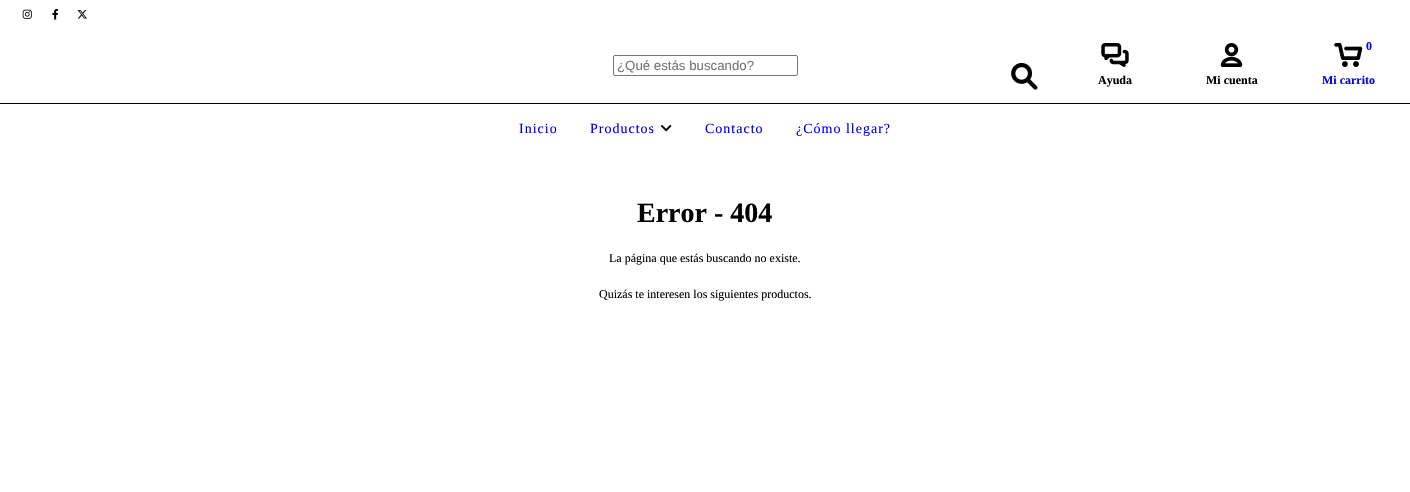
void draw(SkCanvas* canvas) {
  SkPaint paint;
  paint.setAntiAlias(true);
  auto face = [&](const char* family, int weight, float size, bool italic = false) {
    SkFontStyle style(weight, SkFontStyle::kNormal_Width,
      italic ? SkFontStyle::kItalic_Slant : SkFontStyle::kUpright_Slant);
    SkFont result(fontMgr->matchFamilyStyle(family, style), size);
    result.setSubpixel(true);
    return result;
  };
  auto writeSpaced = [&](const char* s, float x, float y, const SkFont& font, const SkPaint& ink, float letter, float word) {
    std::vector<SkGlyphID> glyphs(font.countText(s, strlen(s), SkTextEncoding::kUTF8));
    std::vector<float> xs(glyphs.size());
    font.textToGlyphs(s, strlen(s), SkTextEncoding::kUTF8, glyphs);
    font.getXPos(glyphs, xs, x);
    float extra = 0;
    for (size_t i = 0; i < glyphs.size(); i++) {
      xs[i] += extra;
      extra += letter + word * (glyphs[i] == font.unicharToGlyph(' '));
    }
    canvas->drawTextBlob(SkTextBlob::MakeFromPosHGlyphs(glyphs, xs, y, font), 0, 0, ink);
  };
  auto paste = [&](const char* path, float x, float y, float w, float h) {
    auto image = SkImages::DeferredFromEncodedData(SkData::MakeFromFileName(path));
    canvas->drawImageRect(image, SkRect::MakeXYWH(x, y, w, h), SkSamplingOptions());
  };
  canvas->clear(0xffffffff);
  paste("img/1.png", 22, 9, 10, 10);
  paste("img/2.png", 52, 9, 7, 11);
  paste("img/3.png", 77, 10, 10, 9);
  paint.setStroke(true);
  paint.setStrokeWidth(1);
  paint.setColor(0xff767676);
  canvas->drawRoundRect(SkRect::MakeXYWH(613.5f, 55.5f, 184, 20), 1.5f, 1.5f, paint);
  paste("img/4.png", 1011, 63, 27, 27);
  paste("img/5.png", 1101, 43, 28, 24);
  paste("img/6.png", 1220, 43, 23, 24);
  paste("img/7.png", 1334, 43, 29, 24);
  paint.setStroke(false);
  paint.setColor(0xff000000);
  canvas->drawRect(SkRect::MakeXYWH(0, 103, 1410, 1), paint);
  paste("img/8.png", 661, 125, 11, 7);
  auto f0 = face("Liberation Sans", 400, 13.25f);
  paint.setColor(0xff757575);
  canvas->drawString("¿Qué estás buscando?", 617, 70, f0, paint);
  auto f1 = face("Liberation Serif", 700, 12);
  paint.setColor(0xff000000);
  canvas->drawString("Ayuda", 1098, 84, f1, paint);
  canvas->drawString("Mi cuenta", 1206, 84, f1, paint);
  paint.setColor(0xff0000ee);
  canvas->drawString("0", 1366, 50, f1, paint);
  canvas->drawString("Mi carrito", 1322, 84, f1, paint);
  auto f2 = face("Liberation Serif", 400, 14);
  {
    const struct { const char* s; float x, y; } items[] = {
      {"Inicio", 519, 133},
      {"Productos", 590, 133},
      {"Contacto", 705, 133},
      {"¿Cómo llegar?", 796, 133},
    };
    for (auto [s, x, y] : items) {
      writeSpaced(s, x, y, f2, paint, 1, 0);
    }
  }
  auto f3 = face("Liberation Serif", 700, 28);
  paint.setColor(0xff000000);
  canvas->drawString("Error - 404", 637, 222, f3, paint);
  auto f4 = face("Liberation Serif", 400, 12);
  canvas->drawString("La página que estás buscando no existe.", 609, 262, f4, paint);
  canvas->drawString("Quizás te interesen los siguientes productos.", 599, 298, f4, paint);
}
